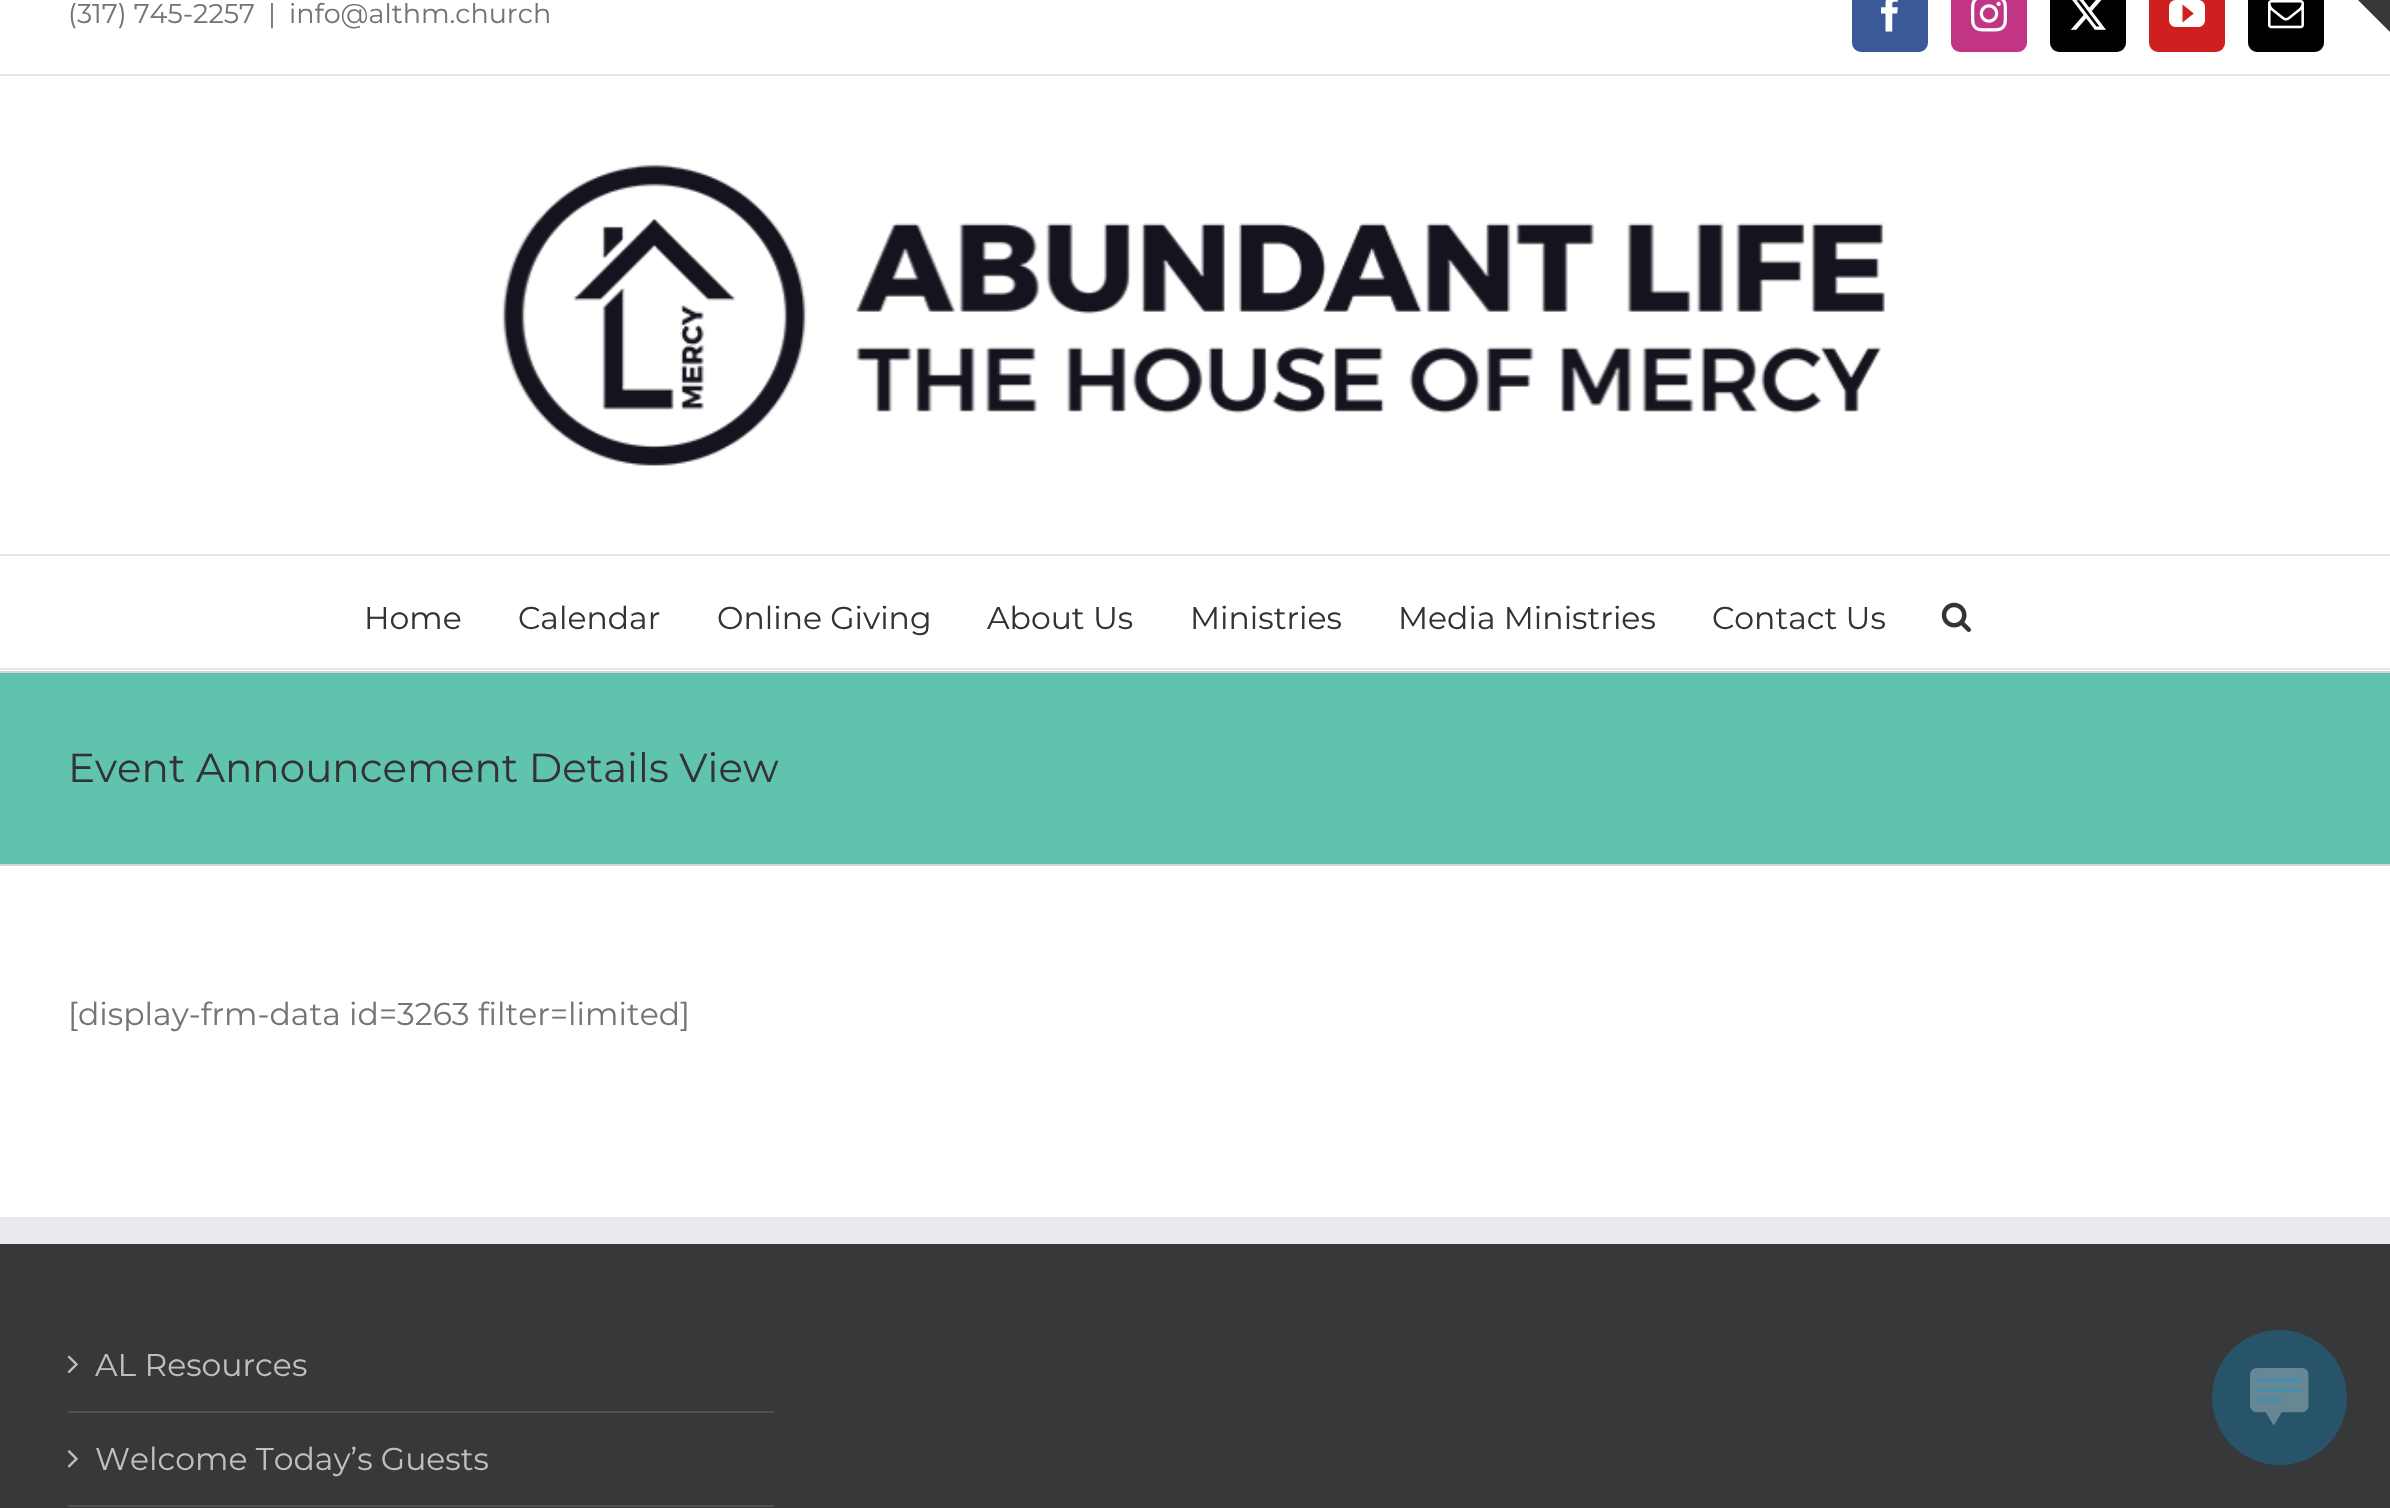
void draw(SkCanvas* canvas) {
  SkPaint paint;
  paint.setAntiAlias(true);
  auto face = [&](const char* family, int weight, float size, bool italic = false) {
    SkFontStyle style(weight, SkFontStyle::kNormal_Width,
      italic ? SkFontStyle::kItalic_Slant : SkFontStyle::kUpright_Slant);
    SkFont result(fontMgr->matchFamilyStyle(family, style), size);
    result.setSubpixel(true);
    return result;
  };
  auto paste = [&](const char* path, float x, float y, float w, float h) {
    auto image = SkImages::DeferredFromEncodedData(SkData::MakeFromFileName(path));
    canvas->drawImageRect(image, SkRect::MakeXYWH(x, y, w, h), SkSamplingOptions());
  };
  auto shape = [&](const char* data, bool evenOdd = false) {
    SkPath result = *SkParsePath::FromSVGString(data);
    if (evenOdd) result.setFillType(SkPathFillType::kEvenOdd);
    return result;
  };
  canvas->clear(0xffffffff);
  paint.setColor(0xffe5e5e5);
  canvas->drawRect(SkRect::MakeXYWH(0, 74, 2390, 2), paint);
  paint.setColor(0xff3b5998);
  canvas->drawRoundRect(SkRect::MakeXYWH(1853, -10, 74, 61), 8, 8, paint);
  paint.setStroke(true);
  paint.setStrokeWidth(2);
  canvas->drawRoundRect(SkRect::MakeXYWH(1853, -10, 74, 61), 8, 8, paint);
  paste("img/1.png", 1881, 0, 17, 32);
  paint.setStroke(false);
  paint.setColor(0xffc13584);
  canvas->drawRoundRect(SkRect::MakeXYWH(1952, -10, 74, 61), 8, 8, paint);
  paint.setStroke(true);
  canvas->drawRoundRect(SkRect::MakeXYWH(1952, -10, 74, 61), 8, 8, paint);
  paste("img/2.png", 1971, 0, 36, 32);
  paint.setStroke(false);
  paint.setColor(0xff000000);
  canvas->drawRoundRect(SkRect::MakeXYWH(2051, -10, 74, 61), 8, 8, paint);
  paint.setStroke(true);
  canvas->drawRoundRect(SkRect::MakeXYWH(2051, -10, 74, 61), 8, 8, paint);
  paste("img/3.png", 2070, 0, 36, 30);
  paint.setStroke(false);
  paint.setColor(0xffcd201f);
  canvas->drawRoundRect(SkRect::MakeXYWH(2150, -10, 74, 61), 8, 8, paint);
  paint.setStroke(true);
  canvas->drawRoundRect(SkRect::MakeXYWH(2150, -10, 74, 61), 8, 8, paint);
  paste("img/4.png", 2169, 0, 36, 27);
  paint.setStroke(false);
  paint.setColor(0xff000000);
  canvas->drawRoundRect(SkRect::MakeXYWH(2249, -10, 74, 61), 8, 8, paint);
  paint.setStroke(true);
  canvas->drawRoundRect(SkRect::MakeXYWH(2249, -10, 74, 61), 8, 8, paint);
  paste("img/5.png", 2268, 0, 36, 29);
  paint.setStroke(false);
  paint.setColor(0xffe5e5e5);
  canvas->drawRect(SkRect::MakeXYWH(0, 554, 2390, 2), paint);
  paste("img/6.png", 502, 164, 1383, 302);
  canvas->drawRect(SkRect::MakeXYWH(0, 668, 2390, 2), paint);
  paste("img/7.png", 1941, 602, 30, 30);
  paint.setColor(0xff363839);
  canvas->drawPath(shape("M2311-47H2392V34Z"), paint);
  {
    const struct { float x, y, w, h; SkColor color; } items[] = {
      {0, 673, 2390, 191, 0xff60c3ad},
      {0, 671, 2390, 2, 0xffd2d3d4},
      {0, 864, 2390, 2, 0xffd2d3d4},
      {0, 1244, 2390, 264, 0xff363839},
      {0, 1217, 2390, 27, 0xffe9eaee},
      {68, 1411, 706, 2, 0xff505152},
    };
    for (auto [x, y, w, h, color] : items) {
      paint.setColor(color);
      canvas->drawRect(SkRect::MakeXYWH(x, y, w, h), paint);
    }
  }
  paste("img/8.png", 67, 1355, 11, 19);
  canvas->drawRect(SkRect::MakeXYWH(68, 1505, 706, 2), paint);
  paste("img/9.png", 67, 1450, 11, 18);
  paint.setColor(0xff275468);
  canvas->drawCircle(2279.5f, 1397.5f, 67.5f, paint);
  paste("img/10.png", 2250, 1368, 59, 58);
  auto f0 = face("Montserrat", 400, 27);
  paint.setColor(0xff747474);
  {
    const struct { const char* s; float x, y; } items[] = {
      {"(317) 745-2257", 68, 23},
      {"|", 268, 23},
      {"info@althm.church", 289, 23},
    };
    for (auto [s, x, y] : items) {
      canvas->drawString(s, x, y, f0, paint);
    }
  }
  auto f1 = face("Montserrat", 400, 31.5f);
  paint.setColor(0xff333333);
  {
    const struct { const char* s; float x, y; } items[] = {
      {"Home", 364, 629},
      {"Calendar", 518, 629},
      {"Online Giving", 717, 629},
      {"About Us", 987, 629},
      {"Ministries", 1190, 629},
      {"Media Ministries", 1398, 629},
      {"Contact Us", 1712, 629},
    };
    for (auto [s, x, y] : items) {
      canvas->drawString(s, x, y, f1, paint);
    }
  }
  auto f2 = face("Montserrat", 400, 40.5f);
  canvas->drawString("Event Announcement Details View", 68, 782, f2, paint);
  paint.setColor(0xff747474);
  canvas->drawString("[display-frm-data id=3263 filter=limited]", 68, 1025, f1, paint);
  paint.setColor(0xffbfbfbf);
  canvas->drawString("AL Resources", 95, 1376, f1, paint);
  canvas->drawString("Welcome Today’s Guests", 95, 1470, f1, paint);
}
